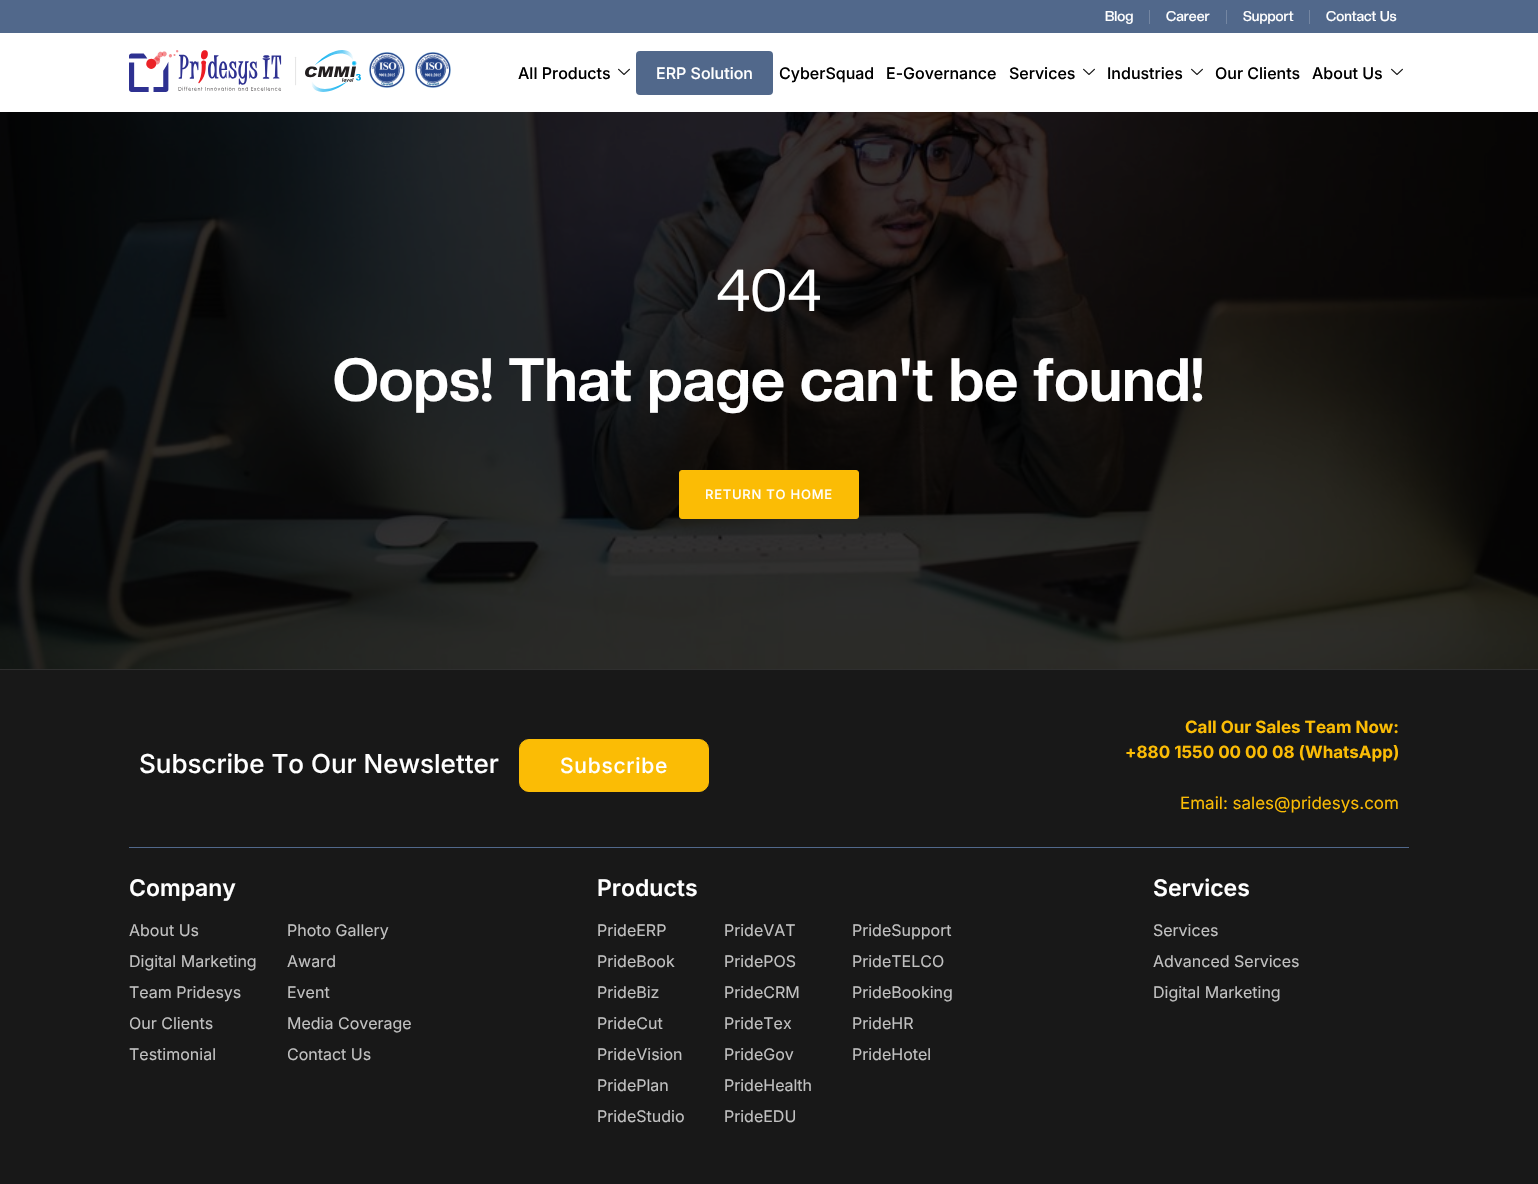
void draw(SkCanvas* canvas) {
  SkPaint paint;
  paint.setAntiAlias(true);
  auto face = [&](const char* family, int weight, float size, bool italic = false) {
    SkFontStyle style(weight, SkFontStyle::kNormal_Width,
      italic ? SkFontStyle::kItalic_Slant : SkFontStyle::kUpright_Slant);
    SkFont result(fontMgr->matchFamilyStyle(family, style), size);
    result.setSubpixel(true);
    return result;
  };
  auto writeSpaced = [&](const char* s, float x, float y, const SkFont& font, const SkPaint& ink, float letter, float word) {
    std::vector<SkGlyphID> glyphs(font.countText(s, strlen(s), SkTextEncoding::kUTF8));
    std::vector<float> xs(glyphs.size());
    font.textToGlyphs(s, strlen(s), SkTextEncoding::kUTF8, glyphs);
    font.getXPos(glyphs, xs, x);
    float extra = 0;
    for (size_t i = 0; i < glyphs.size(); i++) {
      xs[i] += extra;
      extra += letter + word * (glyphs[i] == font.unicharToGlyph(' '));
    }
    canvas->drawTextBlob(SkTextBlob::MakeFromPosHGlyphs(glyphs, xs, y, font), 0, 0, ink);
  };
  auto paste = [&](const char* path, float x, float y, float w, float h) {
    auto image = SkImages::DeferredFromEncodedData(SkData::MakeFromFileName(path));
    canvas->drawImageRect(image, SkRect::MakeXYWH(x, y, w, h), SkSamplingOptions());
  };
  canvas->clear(0xffffffff);
  {
    const struct { float x, y, w, h; SkColor color; } items[] = {
      {0, 0, 1538, 33, 0xff51688b},
      {1149, 10, 1, 14, 0xff7486a2},
      {1226, 10, 1, 14, 0xff7486a2},
      {1309, 10, 1, 14, 0xff7486a2},
    };
    for (auto [x, y, w, h, color] : items) {
      paint.setColor(color);
      canvas->drawRect(SkRect::MakeXYWH(x, y, w, h), paint);
    }
  }
  paste("img/1.png", 129, 50, 232, 42);
  paste("img/2.png", 369, 52, 36, 36);
  paste("img/2.png", 415, 52, 36, 36);
  paste("img/3.png", 618, 68, 12, 7);
  paint.setColor(0xff51688b);
  canvas->drawRoundRect(SkRect::MakeXYWH(636, 51, 137, 44), 4, 4, paint);
  paste("img/3.png", 1083, 68, 12, 7);
  paste("img/3.png", 1191, 68, 12, 7);
  paste("img/3.png", 1391, 68, 12, 7);
  paste("img/4.png", 0, 112, 1538, 557);
  paint.setColor(0xfffbbc05);
  canvas->drawRoundRect(SkRect::MakeXYWH(679.5f, 470.5f, 179, 48), 2.5f, 2.5f, paint);
  paint.setStroke(true);
  paint.setStrokeWidth(1);
  canvas->drawRoundRect(SkRect::MakeXYWH(679.5f, 470.5f, 179, 48), 2.5f, 2.5f, paint);
  paint.setStroke(false);
  paint.setColor(0xff181818);
  canvas->drawRect(SkRect::MakeXYWH(0, 670, 1538, 514), paint);
  paint.setColor(0xff2f2f2f);
  canvas->drawRect(SkRect::MakeXYWH(0, 669, 1538, 1), paint);
  paint.setColor(0xfffbbc05);
  canvas->drawRoundRect(SkRect::MakeXYWH(519.5f, 739.5f, 189, 52), 9.5f, 9.5f, paint);
  paint.setStroke(true);
  canvas->drawRoundRect(SkRect::MakeXYWH(519.5f, 739.5f, 189, 52), 9.5f, 9.5f, paint);
  paint.setStroke(false);
  paint.setColor(0xff51688b);
  canvas->drawRect(SkRect::MakeXYWH(129, 847, 1280, 1), paint);
  auto f0 = face("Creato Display", 500, 14);
  paint.setColor(0xffffffff);
  {
    const struct { const char* s; float x, y; } items[] = {
      {"Blog", 1105, 21},
      {"Career", 1166, 21},
      {"Support", 1243, 21},
      {"Contact Us", 1326, 21},
    };
    for (auto [s, x, y] : items) {
      canvas->drawString(s, x, y, f0, paint);
    }
  }
  auto f1 = face("Inter", 500, 16);
  paint.setColor(0xff000000);
  canvas->drawString("All Products", 518, 79, f1, paint);
  paint.setColor(0xffffffff);
  canvas->drawString("ERP Solution", 656, 79, f1, paint);
  paint.setColor(0xff000000);
  {
    const struct { const char* s; float x, y; } items[] = {
      {"CyberSquad", 779, 79},
      {"E-Governance", 886, 79},
      {"Services", 1009, 79},
      {"Industries", 1107, 79},
      {"Our Clients", 1215, 79},
      {"About Us", 1312, 79},
    };
    for (auto [s, x, y] : items) {
      canvas->drawString(s, x, y, f1, paint);
    }
  }
  auto f2 = face("Creato Display", 400, 58);
  paint.setColor(0xffffffff);
  canvas->drawString("404", 716, 311, f2, paint);
  auto f3 = face("Creato Display", 700, 60);
  canvas->drawString("Oops! That page can't be found!", 333, 401, f3, paint);
  auto f4 = face("Inter", 500, 13);
  writeSpaced("RETURN TO HOME", 705, 499, f4, paint, 0.75f, 0);
  auto f5 = face("Inter", 500, 26);
  canvas->drawString("Subscribe To Our Newsletter", 139, 773, f5, paint);
  auto f6 = face("Inter", 500, 21);
  writeSpaced("Subscribe", 560, 773, f6, paint, 0.75f, 0);
  auto f7 = face("Inter", 700, 17);
  paint.setColor(0xfffbbc05);
  canvas->drawString("Call Our Sales Team Now:", 1185, 733, f7, paint);
  canvas->drawString("+880 1550 00 00 08 (WhatsApp)", 1125, 758, f7, paint);
  auto f8 = face("Inter", 400, 17);
  canvas->drawString("Email: sales@pridesys.com", 1180, 809, f8, paint);
  auto f9 = face("Inter", 600, 23);
  paint.setColor(0xffffffff);
  canvas->drawString("Company", 129, 896, f9, paint);
  auto f10 = face("Inter", 400, 16);
  paint.setColor(0xffc1c1c1);
  {
    const struct { const char* s; float x, y; } items[] = {
      {"About Us", 129, 936},
      {"Digital Marketing", 129, 967},
      {"Team Pridesys", 129, 998},
      {"Our Clients", 129, 1029},
      {"Testimonial", 129, 1060},
      {"Photo Gallery", 287, 936},
      {"Award", 287, 967},
      {"Event", 287, 998},
      {"Media Coverage", 287, 1029},
      {"Contact Us", 287, 1060},
    };
    for (auto [s, x, y] : items) {
      canvas->drawString(s, x, y, f10, paint);
    }
  }
  paint.setColor(0xffffffff);
  canvas->drawString("Products", 597, 896, f9, paint);
  paint.setColor(0xffc1c1c1);
  {
    const struct { const char* s; float x, y; } items[] = {
      {"PrideERP", 597, 936},
      {"PrideBook", 597, 967},
      {"PrideBiz", 597, 998},
      {"PrideCut", 597, 1029},
      {"PrideVision", 597, 1060},
      {"PridePlan", 597, 1091},
      {"PrideStudio", 597, 1122},
      {"PrideVAT", 724, 936},
      {"PridePOS", 724, 967},
      {"PrideCRM", 724, 998},
      {"PrideTex", 724, 1029},
      {"PrideGov", 724, 1060},
      {"PrideHealth", 724, 1091},
      {"PrideEDU", 724, 1122},
      {"PrideSupport", 852, 936},
      {"PrideTELCO", 852, 967},
      {"PrideBooking", 852, 998},
      {"PrideHR", 852, 1029},
      {"PrideHotel", 852, 1060},
    };
    for (auto [s, x, y] : items) {
      canvas->drawString(s, x, y, f10, paint);
    }
  }
  paint.setColor(0xffffffff);
  canvas->drawString("Services", 1153, 896, f9, paint);
  paint.setColor(0xffc1c1c1);
  {
    const struct { const char* s; float x, y; } items[] = {
      {"Services", 1153, 936},
      {"Advanced Services", 1153, 967},
      {"Digital Marketing", 1153, 998},
    };
    for (auto [s, x, y] : items) {
      canvas->drawString(s, x, y, f10, paint);
    }
  }
}
